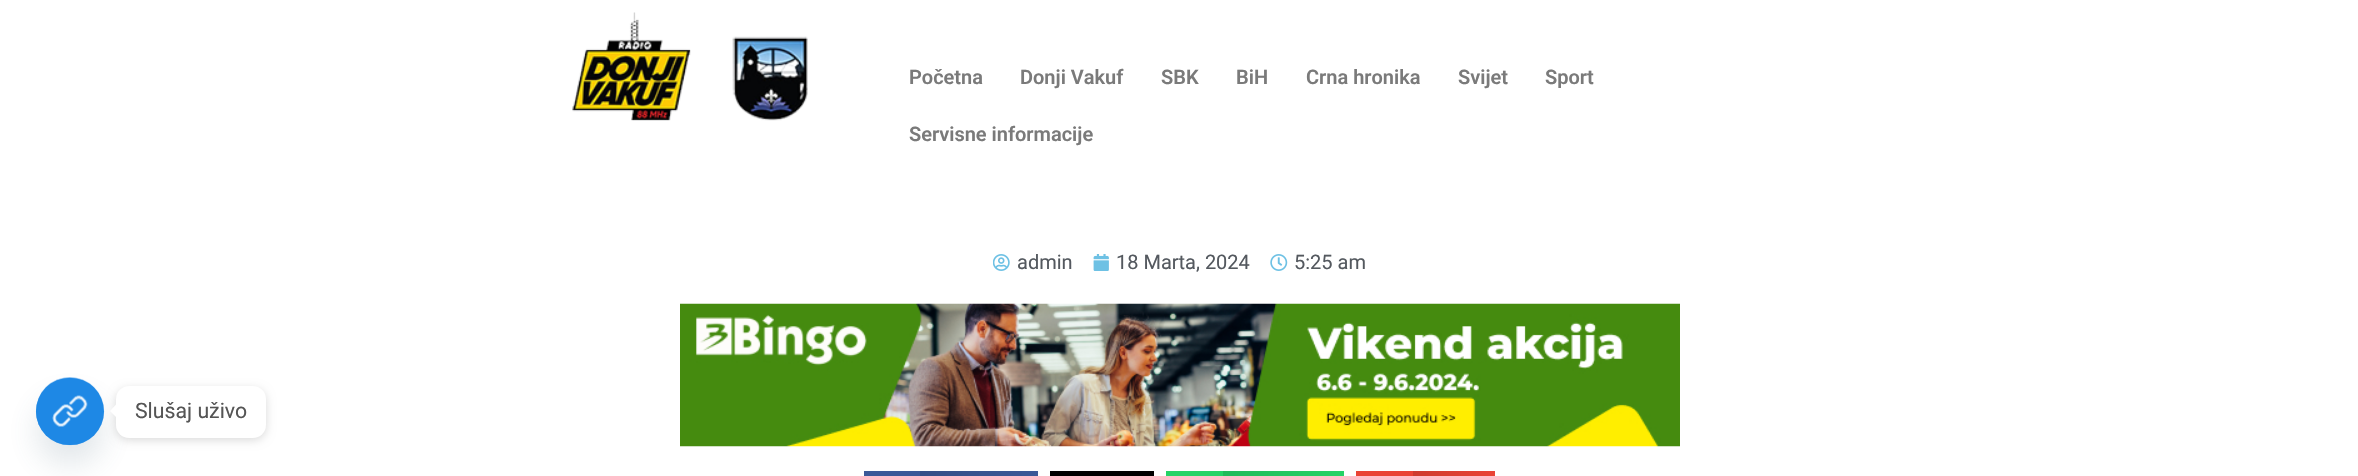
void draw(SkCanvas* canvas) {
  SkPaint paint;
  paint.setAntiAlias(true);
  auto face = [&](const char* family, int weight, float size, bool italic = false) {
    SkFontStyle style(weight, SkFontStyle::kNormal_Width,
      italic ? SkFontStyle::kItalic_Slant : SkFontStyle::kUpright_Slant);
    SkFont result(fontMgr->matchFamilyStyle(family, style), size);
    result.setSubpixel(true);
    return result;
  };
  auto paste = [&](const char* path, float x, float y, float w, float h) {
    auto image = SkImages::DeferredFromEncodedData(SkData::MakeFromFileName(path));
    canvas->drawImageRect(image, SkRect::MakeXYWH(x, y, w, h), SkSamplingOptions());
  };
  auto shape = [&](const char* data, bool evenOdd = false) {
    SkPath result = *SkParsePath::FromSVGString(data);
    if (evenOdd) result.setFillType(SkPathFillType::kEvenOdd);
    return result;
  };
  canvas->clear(0xffffffff);
  paste("img/1.png", 572, 12, 236, 109);
  paste("img/2.png", 993, 254, 17, 17);
  paste("img/3.png", 1093, 254, 16, 17);
  paste("img/4.png", 1270, 254, 18, 17);
  paste("img/5.png", 680, 303, 1000, 144);
  paint.setColor(0xff3b5998);
  canvas->drawRect(SkRect::MakeXYWH(864, 471, 56, 5), paint);
  {
    const SkColor colors[] = {0xff344e86, 0xff3b5998};
    const float stops[] = {0, 1};
    const SkPoint ends[] = {{920, 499}, {1038, 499}};
    paint.setShader(SkGradientShader::MakeLinear(ends, colors, stops, 2, SkTileMode::kClamp));
    paint.setAlpha(255);
  }
  canvas->drawRect(SkRect::MakeXYWH(920, 471, 118, 5), paint);
  paint.setShader(nullptr);
  paint.setColor(0xff000000);
  canvas->drawRect(SkRect::MakeXYWH(1050, 471, 104, 5), paint);
  paint.setColor(0xff25d366);
  canvas->drawRect(SkRect::MakeXYWH(1166, 471, 57, 5), paint);
  {
    const SkColor colors[] = {0xff21ba5a, 0xff25d366};
    const float stops[] = {0, 1};
    const SkPoint ends[] = {{1223, 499}, {1344, 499}};
    paint.setShader(SkGradientShader::MakeLinear(ends, colors, stops, 2, SkTileMode::kClamp));
    paint.setAlpha(255);
  }
  canvas->drawRect(SkRect::MakeXYWH(1223, 471, 121, 5), paint);
  paint.setShader(nullptr);
  paint.setColor(0xffea4335);
  canvas->drawRect(SkRect::MakeXYWH(1356, 471, 57, 5), paint);
  {
    const SkColor colors[] = {0xffce3b2f, 0xffea4335};
    const float stops[] = {0, 1};
    const SkPoint ends[] = {{1413, 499}, {1495, 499}};
    paint.setShader(SkGradientShader::MakeLinear(ends, colors, stops, 2, SkTileMode::kClamp));
    paint.setAlpha(255);
  }
  canvas->drawRect(SkRect::MakeXYWH(1413, 471, 82, 5), paint);
  paint.setShader(nullptr);
  paint.setColor(0x2949687e);
  paint.setMaskFilter(SkMaskFilter::MakeBlur(kNormal_SkBlurStyle, 15));
  canvas->drawRoundRect(SkRect::MakeXYWH(36, 398, 68, 67), 33.5f, 33.5f, paint);
  paint.setMaskFilter(nullptr);
  paint.setColor(0xff1e88e5);
  canvas->drawRoundRect(SkRect::MakeXYWH(36, 378, 68, 67), 33.5f, 33.5f, paint);
  paste("img/6.png", 36, 377, 69, 69);
  paint.setColor(0x26000000);
  paint.setMaskFilter(SkMaskFilter::MakeBlur(kNormal_SkBlurStyle, 5));
  canvas->drawRoundRect(SkRect::MakeXYWH(116, 389, 150, 51), 13, 13, paint);
  paint.setMaskFilter(nullptr);
  paint.setColor(0xffffffff);
  canvas->drawRoundRect(SkRect::MakeXYWH(116, 386, 150, 52), 13, 13, paint);
  canvas->drawPath(shape("M116 404.5V417L110 411Z"), paint);
  auto f0 = face("Roboto", 600, 20);
  paint.setColor(0xff7a7a7a);
  {
    const struct { const char* s; float x, y; } items[] = {
      {"Početna", 909, 84},
      {"Donji Vakuf", 1020, 84},
      {"SBK", 1161, 84},
      {"BiH", 1236, 84},
      {"Crna hronika", 1306, 84},
      {"Svijet", 1458, 84},
      {"Sport", 1545, 84},
      {"Servisne informacije", 909, 141},
    };
    for (auto [s, x, y] : items) {
      canvas->drawString(s, x, y, f0, paint);
    }
  }
  auto f1 = face("Roboto", 400, 20);
  paint.setColor(0xff54595f);
  {
    const struct { const char* s; float x, y; } items[] = {
      {"admin", 1017, 269},
      {"18 Marta, 2024", 1116, 269},
      {"5:25 am", 1294, 269},
    };
    for (auto [s, x, y] : items) {
      canvas->drawString(s, x, y, f1, paint);
    }
  }
  auto f2 = face("Roboto", 400, 21.25f);
  paint.setColor(0xff555555);
  canvas->drawString("Slušaj uživo", 135, 418, f2, paint);
}
